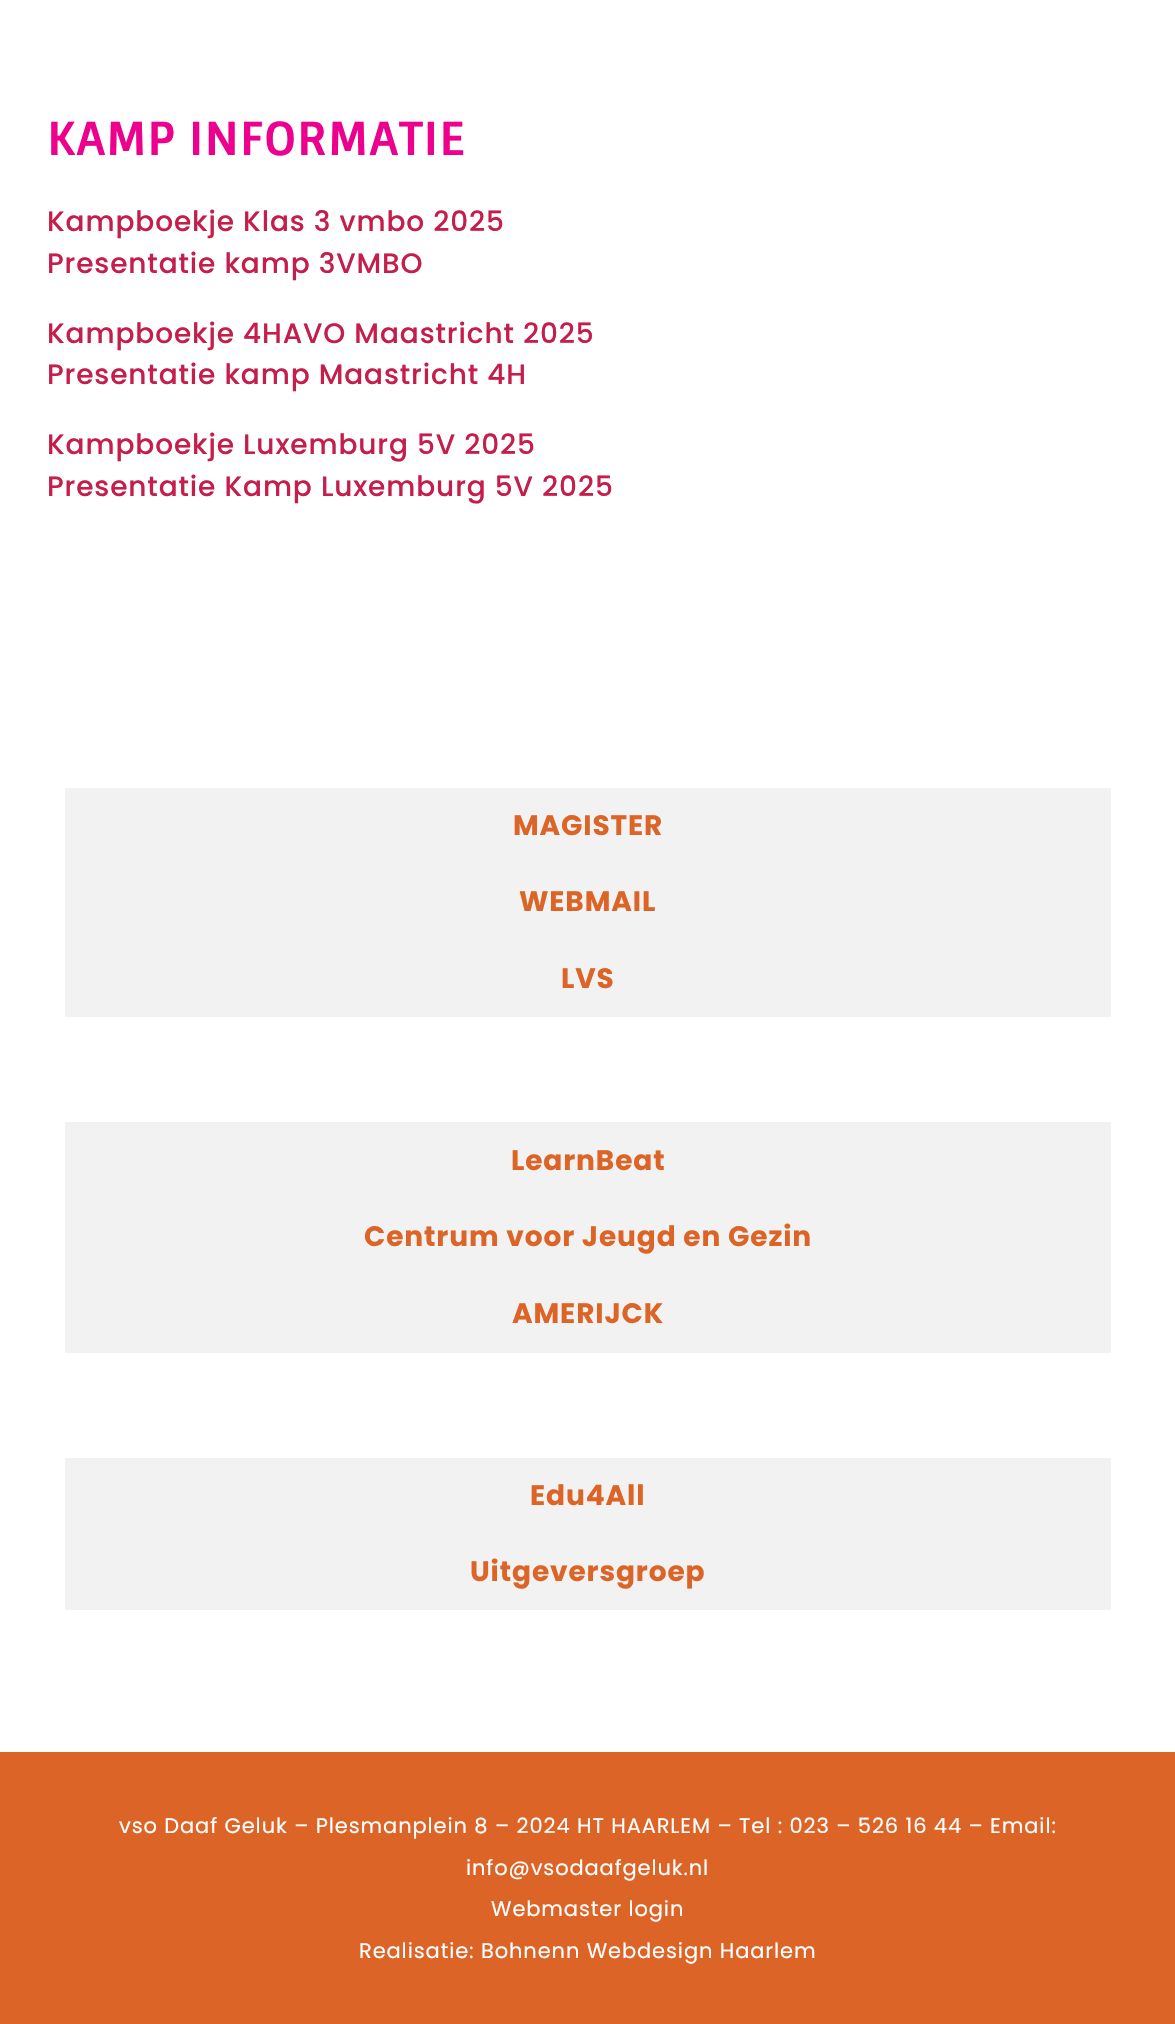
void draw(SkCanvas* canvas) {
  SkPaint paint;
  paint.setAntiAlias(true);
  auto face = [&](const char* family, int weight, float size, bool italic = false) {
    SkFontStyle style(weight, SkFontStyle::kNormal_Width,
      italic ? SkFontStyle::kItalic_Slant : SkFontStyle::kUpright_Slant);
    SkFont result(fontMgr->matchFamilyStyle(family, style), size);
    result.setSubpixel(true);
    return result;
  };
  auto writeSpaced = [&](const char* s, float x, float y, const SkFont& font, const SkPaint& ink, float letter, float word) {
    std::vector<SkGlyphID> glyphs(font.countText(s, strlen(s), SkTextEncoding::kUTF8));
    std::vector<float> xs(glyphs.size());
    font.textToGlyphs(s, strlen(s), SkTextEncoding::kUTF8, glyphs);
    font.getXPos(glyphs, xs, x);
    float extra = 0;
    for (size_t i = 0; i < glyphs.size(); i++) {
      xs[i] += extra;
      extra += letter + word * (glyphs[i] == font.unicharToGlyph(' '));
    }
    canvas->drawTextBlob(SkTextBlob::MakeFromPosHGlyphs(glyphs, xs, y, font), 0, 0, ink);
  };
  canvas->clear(0xffffffff);
  {
    const struct { float x, y, w, h; SkColor color; } items[] = {
      {65, 788, 1046, 229, 0xfff2f2f2},
      {65, 1122, 1046, 231, 0xfff2f2f2},
      {65, 1458, 1046, 152, 0xfff2f2f2},
      {0, 1752, 1175, 272, 0xffdc6427},
    };
    for (auto [x, y, w, h, color] : items) {
      paint.setColor(color);
      canvas->drawRect(SkRect::MakeXYWH(x, y, w, h), paint);
    }
  }
  auto f0 = face("Sintony", 700, 45.5f);
  paint.setColor(0xffec008d);
  writeSpaced("KAMP INFORMATIE", 47, 155, f0, paint, 0.88f, 0);
  auto f1 = face("Poppins", 500, 28);
  paint.setColor(0xffc51d4c);
  {
    const struct { const char* s; float x, y; } items[] = {
      {"Kampboekje Klas 3 vmbo 2025", 47, 231},
      {"Presentatie kamp 3VMBO", 47, 273},
      {"Kampboekje 4HAVO Maastricht 2025", 47, 343},
      {"Presentatie kamp Maastricht 4H", 47, 384},
      {"Kampboekje Luxemburg 5V 2025", 47, 454},
      {"Presentatie Kamp Luxemburg 5V 2025", 47, 496},
    };
    for (auto [s, x, y] : items) {
      writeSpaced(s, x, y, f1, paint, 0.88f, 0);
    }
  }
  auto f2 = face("Poppins", 700, 28);
  paint.setColor(0xffdc6427);
  {
    const struct { const char* s; float x, y; } items[] = {
      {"MAGISTER", 513, 835},
      {"WEBMAIL", 519, 911},
      {"LVS", 561, 988},
      {"LearnBeat", 511, 1170},
      {"Centrum voor Jeugd en Gezin", 364, 1246},
      {"AMERIJCK", 512, 1323},
      {"Edu4All", 530, 1505},
      {"Uitgeversgroep", 470, 1581},
    };
    for (auto [s, x, y] : items) {
      writeSpaced(s, x, y, f2, paint, 0.88f, 0);
    }
  }
  auto f3 = face("Poppins", 400, 21);
  paint.setColor(0xffffffff);
  {
    const struct { const char* s; float x, y; } items[] = {
      {"vso Daaf Geluk – Plesmanplein 8 – 2024 HT HAARLEM – Tel : 023 – 526 16 44 – Email:", 119, 1833},
      {"info@vsodaafgeluk.nl", 466, 1875},
      {"Webmaster login", 491, 1916},
      {"Realisatie: Bohnenn Webdesign Haarlem", 359, 1958},
    };
    for (auto [s, x, y] : items) {
      writeSpaced(s, x, y, f3, paint, 0.88f, 0);
    }
  }
}
